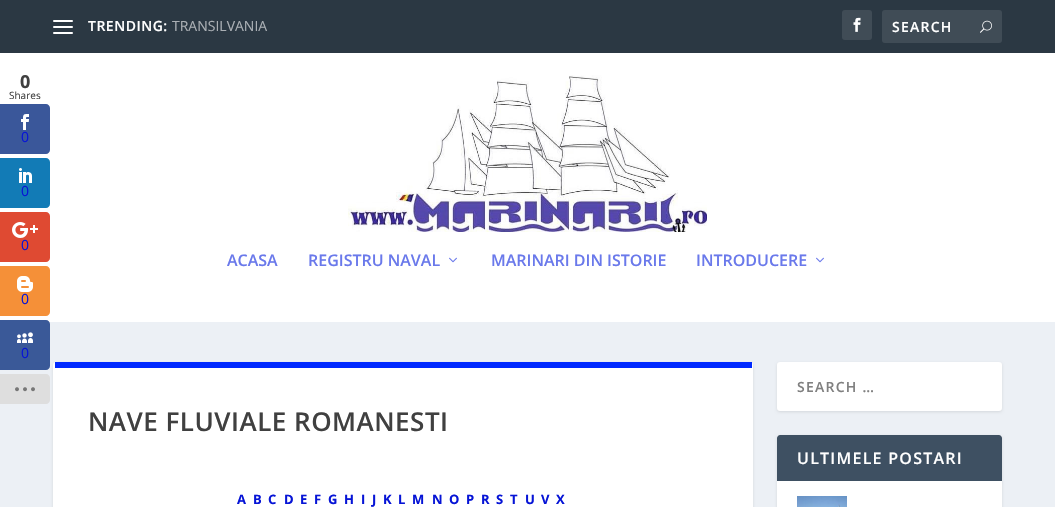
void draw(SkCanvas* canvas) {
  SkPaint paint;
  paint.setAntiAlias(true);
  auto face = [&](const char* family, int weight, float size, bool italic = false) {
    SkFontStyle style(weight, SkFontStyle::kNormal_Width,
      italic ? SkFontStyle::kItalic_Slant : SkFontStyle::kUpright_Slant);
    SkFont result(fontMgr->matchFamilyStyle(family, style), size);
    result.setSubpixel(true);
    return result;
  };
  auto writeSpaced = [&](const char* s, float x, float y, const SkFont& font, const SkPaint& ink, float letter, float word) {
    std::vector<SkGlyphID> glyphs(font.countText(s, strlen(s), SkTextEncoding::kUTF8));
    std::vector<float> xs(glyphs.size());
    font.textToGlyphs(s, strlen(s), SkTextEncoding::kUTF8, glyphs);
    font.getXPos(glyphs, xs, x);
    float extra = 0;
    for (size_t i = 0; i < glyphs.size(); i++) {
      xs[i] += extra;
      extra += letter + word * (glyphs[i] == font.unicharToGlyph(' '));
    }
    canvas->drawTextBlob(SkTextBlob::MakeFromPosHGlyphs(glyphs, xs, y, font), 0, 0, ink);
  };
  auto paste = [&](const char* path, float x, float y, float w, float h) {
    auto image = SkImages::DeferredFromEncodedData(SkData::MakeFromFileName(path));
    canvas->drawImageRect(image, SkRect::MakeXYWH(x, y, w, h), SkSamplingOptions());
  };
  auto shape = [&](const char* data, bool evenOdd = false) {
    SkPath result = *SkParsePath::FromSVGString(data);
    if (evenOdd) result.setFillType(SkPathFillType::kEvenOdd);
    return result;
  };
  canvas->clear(0xffecf0f5);
  paint.setColor(0xffffffff);
  canvas->drawRect(SkRect::MakeXYWH(0, 53, 1055, 269), paint);
  paint.setColor(0xff3a579a);
  canvas->drawPath(shape("M0 104H46C48 104 50 106 50 108V150C50 152 48 154 46 154H0Z"), paint);
  paste("img/1.png", 21, 114, 8, 16);
  paint.setColor(0xff127bb6);
  canvas->drawPath(shape("M0 158H46C48 158 50 160 50 162V204C50 206 48 208 46 208H0Z"), paint);
  paste("img/2.png", 19, 168, 13, 15);
  paint.setColor(0xffdf4a32);
  canvas->drawPath(shape("M0 212H46C48 212 50 214 50 216V258C50 260 48 262 46 262H0Z"), paint);
  paste("img/3.png", 12, 222, 26, 16);
  paint.setColor(0xfff59038);
  canvas->drawPath(shape("M0 266H46C48 266 50 268 50 270V312C50 314 48 316 46 316H0Z"), paint);
  paste("img/4.png", 17, 276, 16, 16);
  paint.setColor(0x1a000000);
  paint.setMaskFilter(SkMaskFilter::MakeBlur(kNormal_SkBlurStyle, 1.5f));
  canvas->drawRoundRect(SkRect::MakeXYWH(53, 363, 700, 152), 3, 3, paint);
  paint.setMaskFilter(nullptr);
  paint.setColor(0xff3a5998);
  canvas->drawPath(shape("M0 320H46C48 320 50 322 50 324V366C50 368 48 370 46 370H0Z"), paint);
  paste("img/5.png", 17, 332, 16, 11);
  paint.setColor(0xffdedede);
  canvas->drawPath(shape("M0 374H46C48 374 50 376 50 378V400C50 402 48 404 46 404H0Z"), paint);
  paste("img/6.png", 15, 387, 20, 5);
  paint.setColor(0xff2b3843);
  canvas->drawRect(SkRect::MakeXYWH(0, 0, 1055, 53), paint);
  paint.setColor(0xffffffff);
  canvas->drawRoundRect(SkRect::MakeXYWH(53, 20, 20, 2), 1, 1, paint);
  canvas->drawRoundRect(SkRect::MakeXYWH(53, 26, 20, 2), 1, 1, paint);
  canvas->drawRoundRect(SkRect::MakeXYWH(53, 32, 20, 2), 1, 1, paint);
  paint.setColor(0xff404c56);
  canvas->drawRoundRect(SkRect::MakeXYWH(842, 10, 30, 30), 3, 3, paint);
  paste("img/7.png", 853, 17, 8, 15);
  canvas->drawRoundRect(SkRect::MakeXYWH(882, 10, 120, 33), 3, 3, paint);
  paste("img/8.png", 980, 20, 12, 13);
  paste("img/9.png", 348, 75, 359, 157);
  paste("img/10.png", 449, 257, 8, 6);
  paste("img/10.png", 816, 257, 8, 6);
  paint.setColor(0xffffffff);
  canvas->drawRoundRect(SkRect::MakeXYWH(53, 362, 700, 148), 3, 3, paint);
  paint.setColor(0xff0029ff);
  canvas->drawRect(SkRect::MakeXYWH(55, 362, 697, 6), paint);
  paint.setColor(0x1a000000);
  paint.setMaskFilter(SkMaskFilter::MakeBlur(kNormal_SkBlurStyle, 1.5f));
  canvas->drawRoundRect(SkRect::MakeXYWH(777, 363, 225, 49), 3, 3, paint);
  paint.setMaskFilter(nullptr);
  paint.setColor(0xffffffff);
  canvas->drawRoundRect(SkRect::MakeXYWH(777, 362, 225, 49), 3, 3, paint);
  paint.setColor(0x1a000000);
  paint.setMaskFilter(SkMaskFilter::MakeBlur(kNormal_SkBlurStyle, 1.5f));
  canvas->drawRoundRect(SkRect::MakeXYWH(777, 436, 225, 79), 3, 3, paint);
  paint.setMaskFilter(nullptr);
  paint.setColor(0xffffffff);
  canvas->drawRoundRect(SkRect::MakeXYWH(777, 435, 225, 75), 3, 3, paint);
  paint.setColor(0xff3e5062);
  canvas->drawPath(shape("M780 435H999C1000.5 435 1002 436.5 1002 438V481H777V438C777 436.5 778.5 435 780 435Z"), paint);
  paste("img/11.png", 797, 496, 50, 11);
  auto f0 = face("Open Sans", 700, 18);
  paint.setColor(0xff404040);
  canvas->drawString("0", 20, 88, f0, paint);
  auto f1 = face("Open Sans", 400, 10);
  canvas->drawString("Shares", 9, 99, f1, paint);
  auto f2 = face("Open Sans", 400, 14);
  paint.setColor(0xff0614d6);
  {
    const struct { const char* s; float x, y; } items[] = {
      {"0", 21, 142},
      {"0", 21, 196},
      {"0", 21, 250},
      {"0", 21, 304},
      {"0", 21, 358},
    };
    for (auto [s, x, y] : items) {
      canvas->drawString(s, x, y, f2, paint);
    }
  }
  auto f3 = face("Open Sans", 600, 14);
  paint.setColor(0xffffffff);
  writeSpaced("TRENDING:", 88, 31, f3, paint, 0.5f, 0);
  paint.setColor(0xffaaafb4);
  canvas->drawString("TRANSILVANIA", 172, 31, f2, paint);
  paint.setColor(0xffffffff);
  writeSpaced("SEARCH", 892, 32, f3, paint, 1.25f, 0);
  auto f4 = face("Open Sans", 600, 16);
  paint.setColor(0xff6a79eb);
  {
    const struct { const char* s; float x, y; } items[] = {
      {"ACASA", 227, 266},
      {"REGISTRU NAVAL", 308, 266},
      {"MARINARI DIN ISTORIE", 491, 266},
      {"INTRODUCERE", 696, 266},
    };
    for (auto [s, x, y] : items) {
      canvas->drawString(s, x, y, f4, paint);
    }
  }
  auto f5 = face("Open Sans", 600, 26);
  paint.setColor(0xff404040);
  writeSpaced("NAVE FLUVIALE ROMANESTI", 88, 431, f5, paint, 0.5f, 0);
  auto f6 = face("Open Sans", 700, 13);
  paint.setColor(0xff0614d6);
  {
    const struct { const char* s; float x, y; } items[] = {
      {"A", 237, 504},
      {"B", 253, 504},
      {"C", 268, 504},
      {"D", 284, 504},
      {"E", 300, 504},
      {"F", 314, 504},
      {"G", 328, 504},
      {"H", 344, 504},
      {"I", 361, 504},
      {"J", 372, 504},
      {"K", 383, 504},
      {"L", 398, 504},
      {"M", 412, 504},
      {"N", 432, 504},
      {"O", 449, 504},
      {"P", 466, 504},
      {"R", 481, 504},
      {"S", 496, 504},
      {"T", 510, 504},
      {"U", 525, 504},
      {"V", 541, 504},
      {"X", 556, 504},
    };
    for (auto [s, x, y] : items) {
      canvas->drawString(s, x, y, f6, paint);
    }
  }
  paint.setColor(0xff808080);
  writeSpaced("SEARCH …", 797, 392, f3, paint, 1.25f, 0);
  paint.setColor(0xffffffff);
  writeSpaced("ULTIMELE POSTARI", 797, 464, f4, paint, 1.25f, 0);
}
